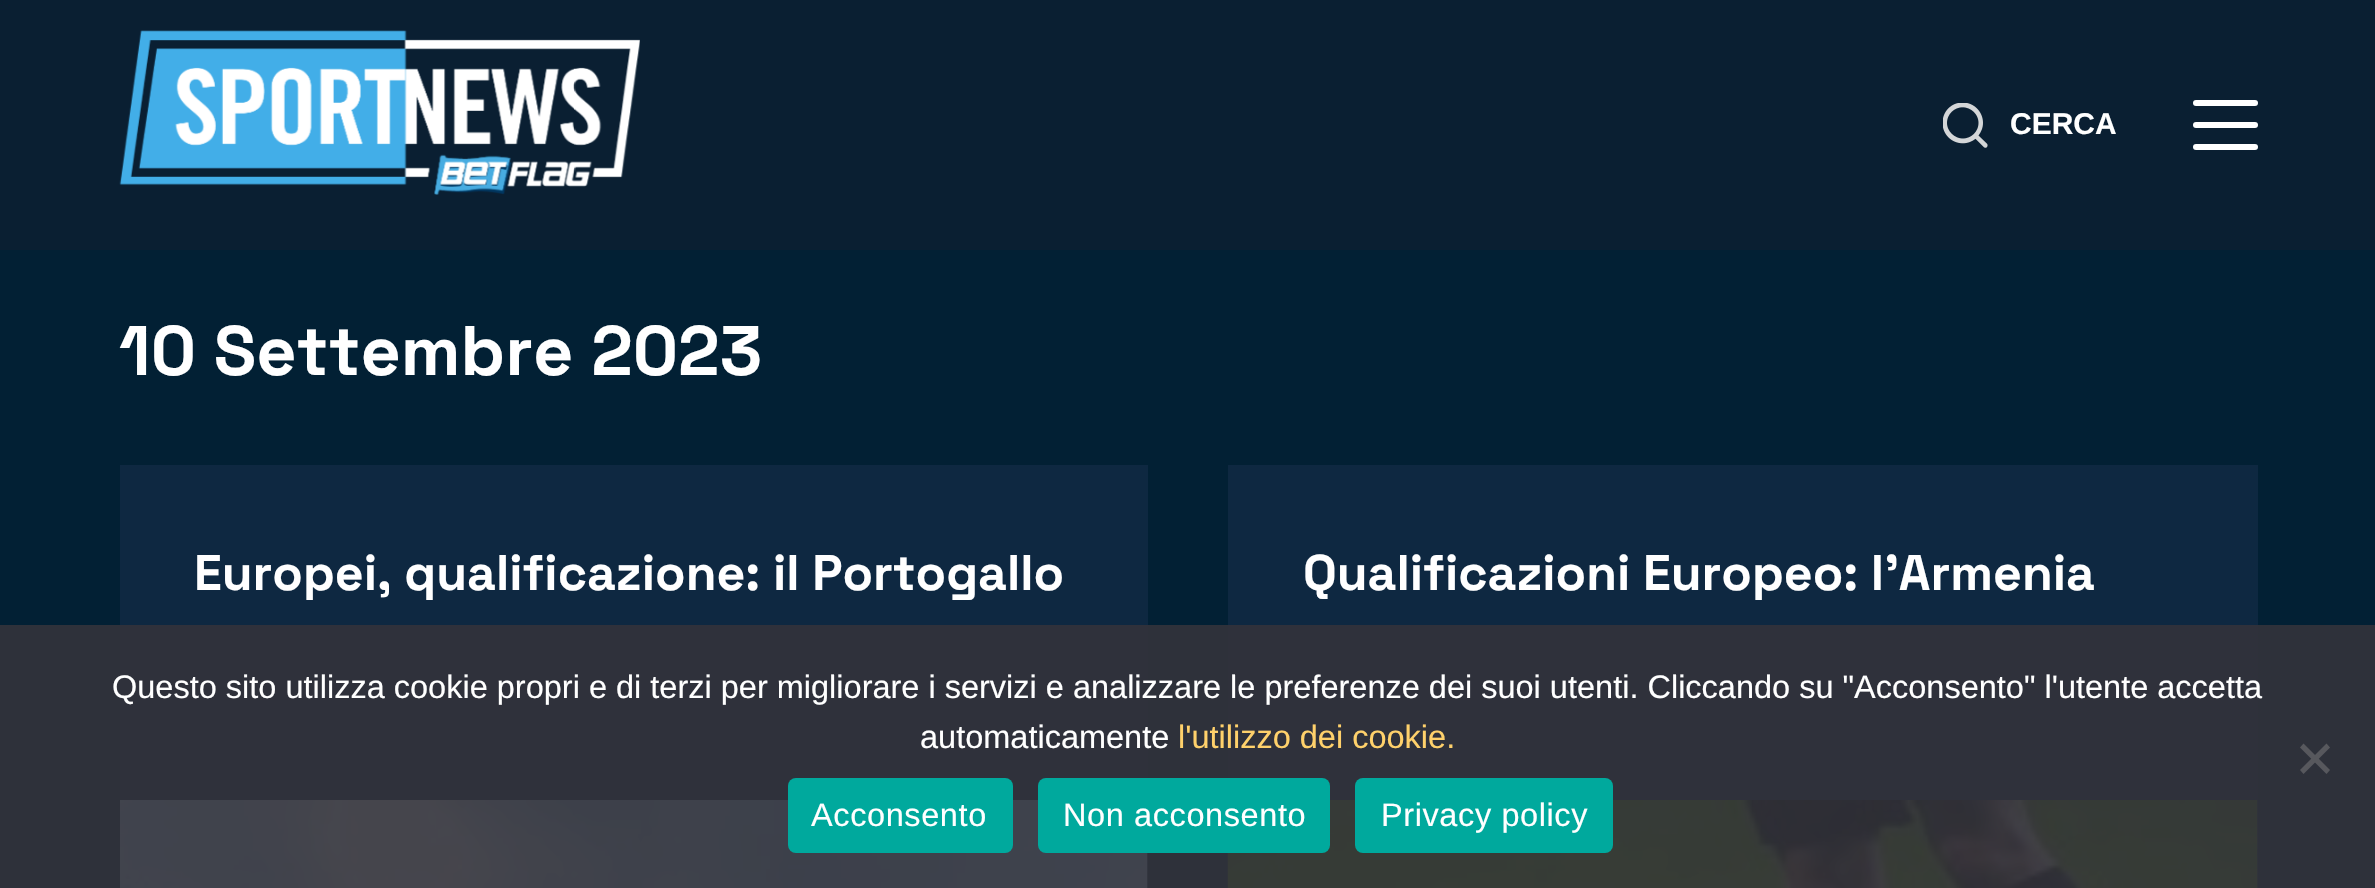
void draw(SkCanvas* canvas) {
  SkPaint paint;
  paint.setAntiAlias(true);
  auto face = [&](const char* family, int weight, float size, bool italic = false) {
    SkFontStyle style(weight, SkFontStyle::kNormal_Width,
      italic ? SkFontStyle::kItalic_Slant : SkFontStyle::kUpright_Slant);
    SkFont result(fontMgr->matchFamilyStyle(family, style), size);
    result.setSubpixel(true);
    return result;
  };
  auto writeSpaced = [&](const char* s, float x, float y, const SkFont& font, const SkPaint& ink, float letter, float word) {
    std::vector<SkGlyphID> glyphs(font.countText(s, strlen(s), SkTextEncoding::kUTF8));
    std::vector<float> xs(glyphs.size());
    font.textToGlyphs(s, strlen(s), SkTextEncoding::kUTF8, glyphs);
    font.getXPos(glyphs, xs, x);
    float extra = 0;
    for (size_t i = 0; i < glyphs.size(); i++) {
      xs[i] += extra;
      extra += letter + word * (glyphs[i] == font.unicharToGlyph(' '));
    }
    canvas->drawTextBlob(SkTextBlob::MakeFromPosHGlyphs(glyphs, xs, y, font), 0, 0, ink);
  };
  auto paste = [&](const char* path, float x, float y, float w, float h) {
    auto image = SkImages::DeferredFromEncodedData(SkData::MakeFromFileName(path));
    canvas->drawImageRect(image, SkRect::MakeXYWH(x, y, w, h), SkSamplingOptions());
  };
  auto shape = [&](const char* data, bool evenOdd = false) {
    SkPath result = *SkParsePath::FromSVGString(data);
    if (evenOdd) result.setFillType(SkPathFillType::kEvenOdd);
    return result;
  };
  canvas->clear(0xff022034);
  paint.setColor(0xff0a1f32);
  canvas->drawRect(SkRect::MakeXYWH(0, 0, 2375, 250), paint);
  paste("img/1.png", 119, 30, 521, 165);
  paste("img/2.png", 1943, 103, 45, 45);
  paint.setColor(0xffffffff);
  canvas->drawRoundRect(SkRect::MakeXYWH(2193, 100, 65, 6), 3, 3, paint);
  canvas->drawRoundRect(SkRect::MakeXYWH(2193, 122, 65, 6), 3, 3, paint);
  canvas->drawRoundRect(SkRect::MakeXYWH(2193, 144, 65, 6), 3, 3, paint);
  paint.setColor(0xff0e2841);
  canvas->drawRect(SkRect::MakeXYWH(120, 465, 1028, 423), paint);
  paste("img/3.png", 120, 800, 1028, 88);
  canvas->drawRect(SkRect::MakeXYWH(1228, 465, 1030, 423), paint);
  paste("img/4.png", 1227, 800, 1031, 88);
  paint.setColor(0xe632323a);
  canvas->drawRect(SkRect::MakeXYWH(0, 625, 2375, 263), paint);
  paint.setColor(0xff57585d);
  canvas->drawPath(shape("M2326.5 743.5L2330 747.5L2303.5 774L2300 770Z"), paint);
  canvas->drawPath(shape("M2300 747.5L2303.5 743.5L2330 770L2326.5 774Z"), paint);
  paint.setColor(0xff00a99d);
  canvas->drawRoundRect(SkRect::MakeXYWH(788, 778, 225, 75), 8, 8, paint);
  canvas->drawRoundRect(SkRect::MakeXYWH(1038, 778, 292, 75), 8, 8, paint);
  canvas->drawRoundRect(SkRect::MakeXYWH(1355, 778, 258, 75), 8, 8, paint);
  auto f0 = face("Liberation Sans", 700, 30);
  paint.setColor(0xffffffff);
  canvas->drawString("CERCA", 2010, 134, f0, paint);
  auto f1 = face("Space Grotesk", 700, 70);
  canvas->drawString("10 Settembre 2023", 119, 375, f1, paint);
  auto f2 = face("Space Grotesk", 700, 50);
  canvas->drawString("Europei, qualificazione: il Portogallo", 194, 590, f2, paint);
  canvas->drawString("Qualificazioni Europeo: l’Armenia", 1303, 590, f2, paint);
  auto f3 = face("Liberation Sans", 400, 32.5f);
  canvas->drawString("Questo sito utilizza cookie propri e di terzi per migliorare i servizi e analizzare le preferenze dei suoi utenti. Cliccando su \"Acconsento\" l'utente accetta", 112, 698, f3, paint);
  canvas->drawString("automaticamente", 920, 748, f3, paint);
  paint.setColor(0xffffd16b);
  canvas->drawString("l'utilizzo dei cookie.", 1178, 748, f3, paint);
  paint.setColor(0xffffffff);
  {
    const struct { const char* s; float x, y; } items[] = {
      {"Acconsento", 811, 826},
      {"Non acconsento", 1063, 826},
      {"Privacy policy", 1381, 826},
    };
    for (auto [s, x, y] : items) {
      writeSpaced(s, x, y, f3, paint, 0.6f, 0);
    }
  }
}
